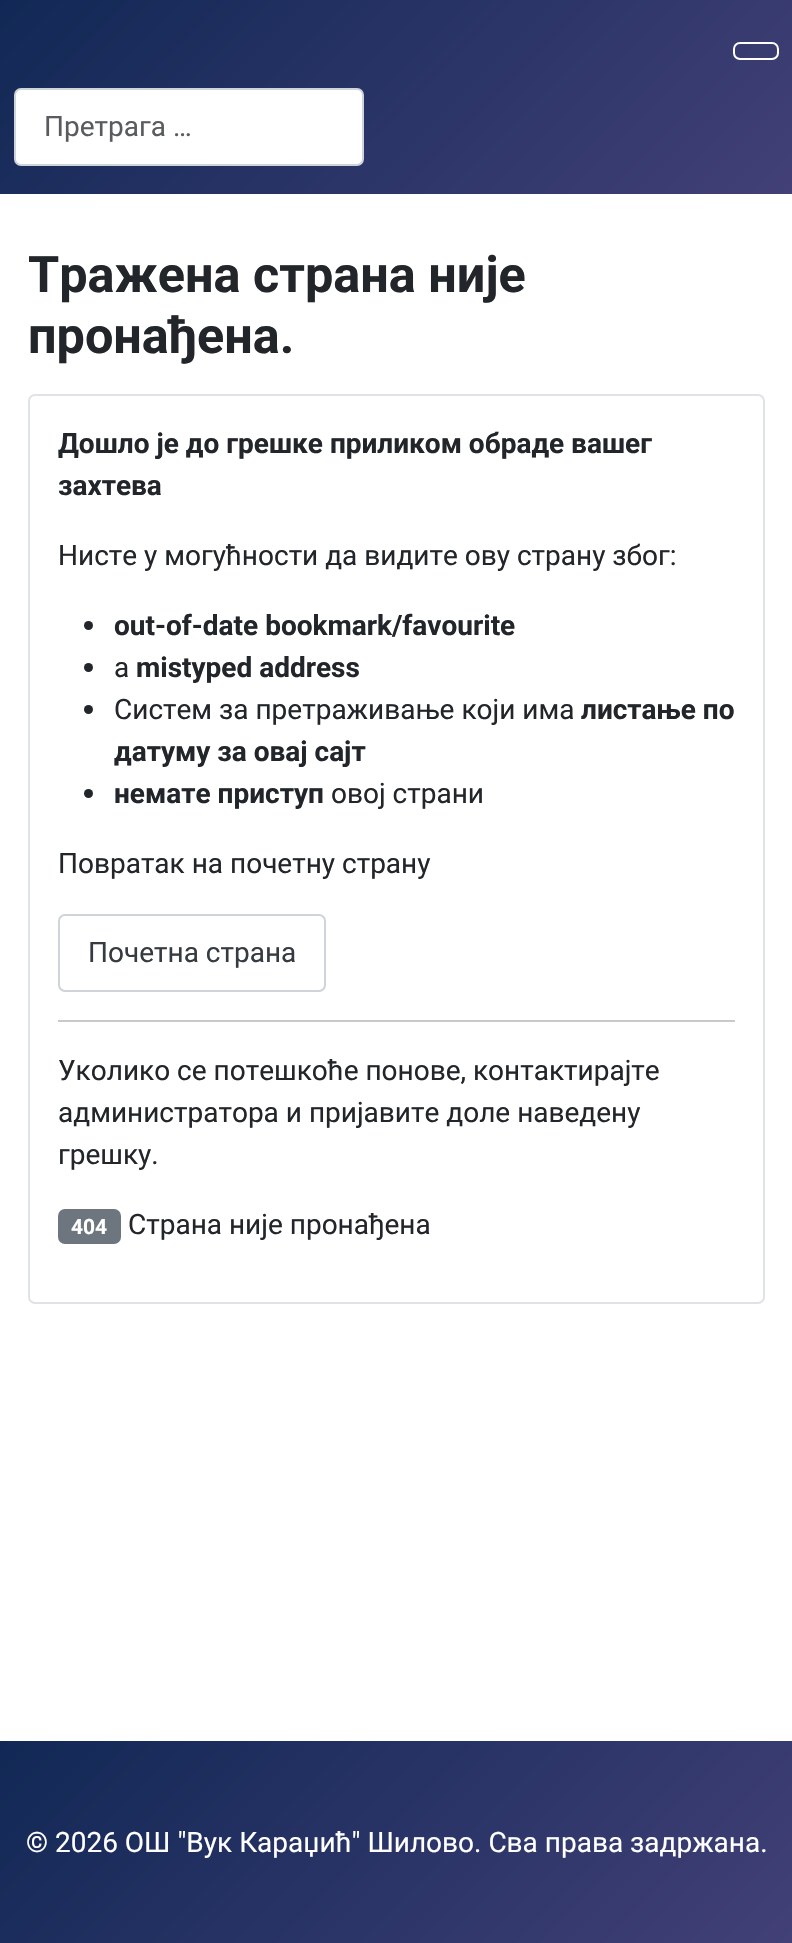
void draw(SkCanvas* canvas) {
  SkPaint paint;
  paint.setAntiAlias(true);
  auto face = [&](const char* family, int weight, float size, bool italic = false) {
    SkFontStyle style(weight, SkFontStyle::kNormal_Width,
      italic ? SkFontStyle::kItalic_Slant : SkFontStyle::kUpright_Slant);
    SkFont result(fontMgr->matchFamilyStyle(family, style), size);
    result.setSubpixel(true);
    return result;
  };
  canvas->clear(0xffffffff);
  {
    const SkColor colors[] = {0xff112855, 0xff424077};
    const float stops[] = {0, 1};
    const SkPoint ends[] = {{150, -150}, {643, 344}};
    paint.setShader(SkGradientShader::MakeLinear(ends, colors, stops, 2, SkTileMode::kClamp));
    paint.setAlpha(255);
  }
  canvas->drawRect(SkRect::MakeXYWH(0, 0, 792, 194), paint);
  paint.setStroke(true);
  paint.setStrokeWidth(2);
  paint.setShader(nullptr);
  paint.setColor(0xffffffff);
  canvas->drawRoundRect(SkRect::MakeXYWH(734, 43, 44, 16), 6, 6, paint);
  paint.setStroke(false);
  canvas->drawRoundRect(SkRect::MakeXYWH(15, 89, 348, 76), 6, 6, paint);
  paint.setStroke(true);
  paint.setColor(0xffced4da);
  canvas->drawRoundRect(SkRect::MakeXYWH(15, 89, 348, 76), 6, 6, paint);
  paint.setColor(0xffdfe3e7);
  canvas->drawRoundRect(SkRect::MakeXYWH(29, 395, 735, 908), 6, 6, paint);
  paint.setStroke(false);
  paint.setColor(0xff22262a);
  canvas->drawCircle(88.5f, 625.5f, 4.5f, paint);
  canvas->drawCircle(88.5f, 667.5f, 4.5f, paint);
  canvas->drawCircle(88.5f, 709.5f, 4.5f, paint);
  canvas->drawCircle(88.5f, 793.5f, 4.5f, paint);
  paint.setStroke(true);
  paint.setColor(0xffced4da);
  canvas->drawRoundRect(SkRect::MakeXYWH(59, 915, 266, 76), 6, 6, paint);
  paint.setStroke(false);
  paint.setColor(0xffc8c9ca);
  canvas->drawRect(SkRect::MakeXYWH(58, 1020, 677, 2), paint);
  paint.setColor(0xff6d757e);
  canvas->drawRoundRect(SkRect::MakeXYWH(58, 1209, 63, 35), 7, 7, paint);
  {
    const SkColor colors[] = {0xff112855, 0xff424077};
    const float stops[] = {0, 1};
    const SkPoint ends[] = {{147, 1594}, {645, 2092}};
    paint.setShader(SkGradientShader::MakeLinear(ends, colors, stops, 2, SkTileMode::kClamp));
    paint.setAlpha(255);
  }
  canvas->drawRect(SkRect::MakeXYWH(0, 1741, 792, 202), paint);
  auto f0 = face("Roboto", 400, 28);
  paint.setShader(nullptr);
  paint.setColor(0xff595c5f);
  canvas->drawString("Претрага …", 44, 136, f0, paint);
  auto f1 = face("Roboto", 700, 50.4f);
  paint.setColor(0xff22262a);
  canvas->drawString("Тражена страна није", 28, 292, f1, paint);
  canvas->drawString("пронађена.", 28, 353, f1, paint);
  auto f2 = face("Roboto", 700, 28);
  canvas->drawString("Дошло је до грешке приликом обраде вашег", 58, 453, f2, paint);
  canvas->drawString("захтева", 58, 495, f2, paint);
  canvas->drawString("Нисте у могућности да видите ову страну због:", 58, 565, f0, paint);
  canvas->drawString("out-of-date bookmark/favourite", 114, 635, f2, paint);
  canvas->drawString("a", 114, 677, f0, paint);
  canvas->drawString("mistyped address", 136, 677, f2, paint);
  canvas->drawString("Систем за претраживање који има", 114, 719, f0, paint);
  {
    const struct { const char* s; float x, y; } items[] = {
      {"листање по", 581, 719},
      {"датуму за овај сајт", 114, 761},
      {"немате приступ", 114, 803},
    };
    for (auto [s, x, y] : items) {
      canvas->drawString(s, x, y, f2, paint);
    }
  }
  canvas->drawString("овој страни", 331, 803, f0, paint);
  canvas->drawString("Повратак на почетну страну", 58, 873, f0, paint);
  paint.setColor(0xff353b41);
  canvas->drawString("Почетна страна", 88, 962, f0, paint);
  paint.setColor(0xff22262a);
  {
    const struct { const char* s; float x, y; } items[] = {
      {"Уколико се потешкоће понове, контактирајте", 58, 1080},
      {"администратора и пријавите доле наведену", 58, 1122},
      {"грешку.", 58, 1164},
    };
    for (auto [s, x, y] : items) {
      canvas->drawString(s, x, y, f0, paint);
    }
  }
  auto f3 = face("Roboto", 700, 21);
  paint.setColor(0xffffffff);
  canvas->drawString("404", 71, 1234, f3, paint);
  paint.setColor(0xff22262a);
  canvas->drawString("Страна није пронађена", 128, 1234, f0, paint);
  paint.setColor(0xffffffff);
  canvas->drawString("© 2026 ОШ \"Вук Караџић\" Шилово. Сва права задржана.", 26, 1852, f0, paint);
}
